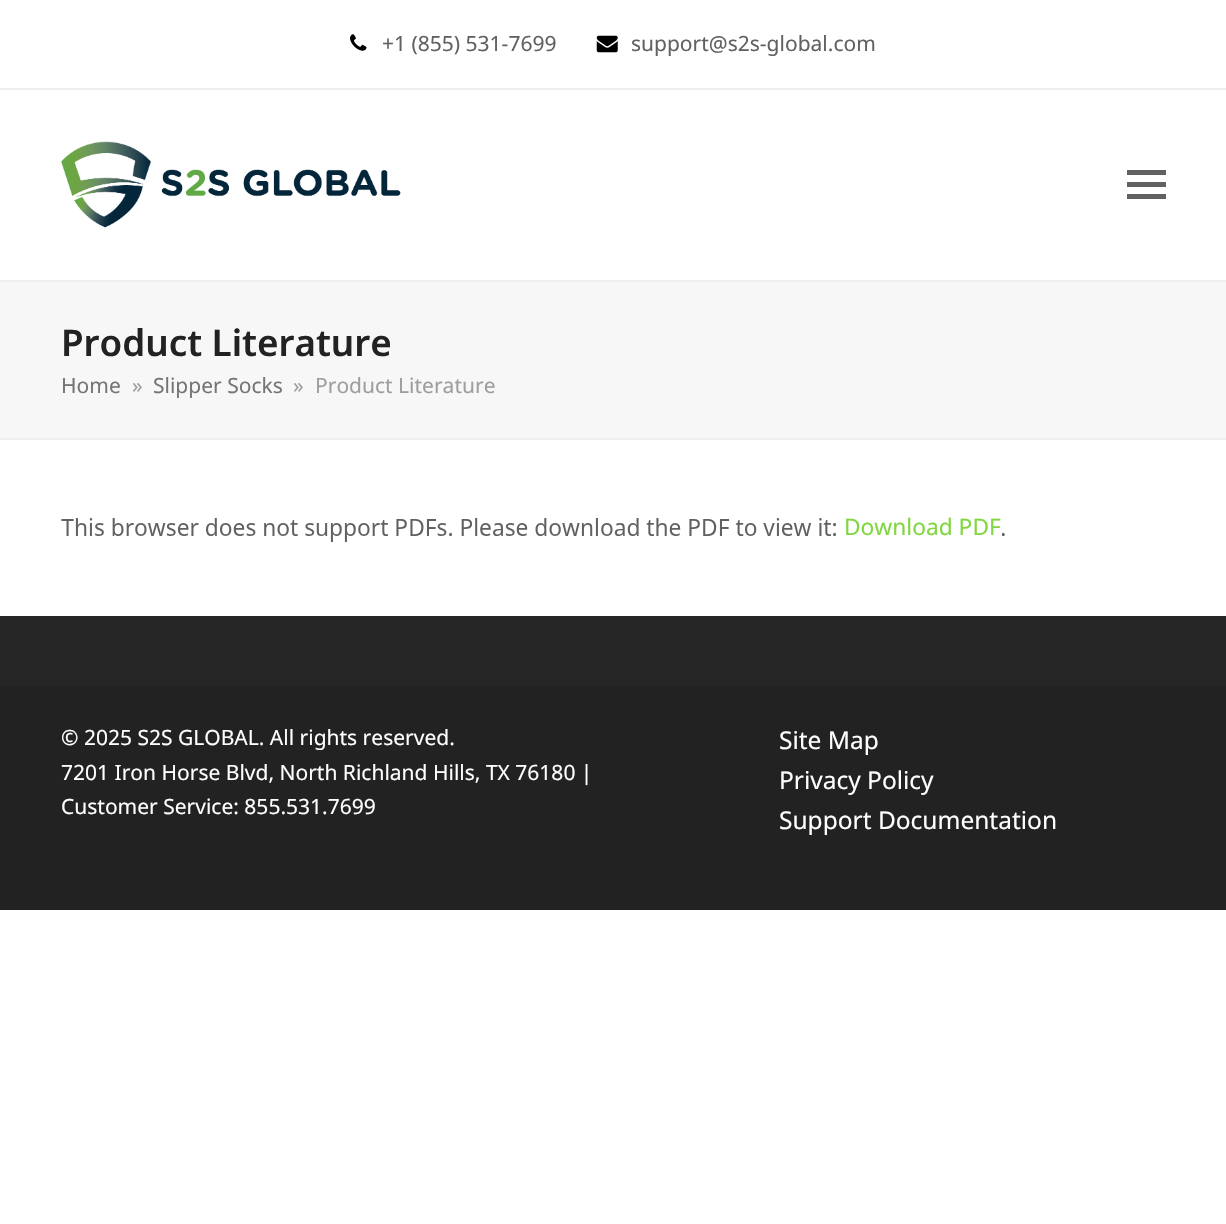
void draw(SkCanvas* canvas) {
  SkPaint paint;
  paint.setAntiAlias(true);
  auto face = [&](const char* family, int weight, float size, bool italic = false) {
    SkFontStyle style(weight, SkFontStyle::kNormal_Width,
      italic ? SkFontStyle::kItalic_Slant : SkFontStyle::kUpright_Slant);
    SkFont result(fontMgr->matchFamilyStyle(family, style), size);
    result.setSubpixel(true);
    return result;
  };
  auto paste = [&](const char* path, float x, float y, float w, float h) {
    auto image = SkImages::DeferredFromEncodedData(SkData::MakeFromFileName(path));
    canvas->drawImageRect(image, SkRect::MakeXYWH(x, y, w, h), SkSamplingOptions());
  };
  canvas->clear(0xffffffff);
  paint.setColor(0xffeeeeee);
  canvas->drawRect(SkRect::MakeXYWH(0, 88, 1226, 2), paint);
  paste("img/1.png", 350, 34, 17, 17);
  paste("img/2.png", 596, 35, 22, 18);
  paste("img/3.png", 61, 141, 340, 87);
  {
    const struct { float x, y, w, h; SkColor color; } items[] = {
      {1127, 182, 39, 5, 0xff616161},
      {1127, 170, 39, 5, 0xff616161},
      {1127, 194, 39, 5, 0xff616161},
      {0, 282, 1226, 156, 0xfff7f7f7},
      {0, 280, 1226, 2, 0xffeeeeee},
      {0, 438, 1226, 2, 0xffeeeeee},
    };
    for (auto [x, y, w, h, color] : items) {
      paint.setColor(color);
      canvas->drawRect(SkRect::MakeXYWH(x, y, w, h), paint);
    }
  }
  paste("img/4.png", 61, 518, 944, 24);
  paint.setColor(0xff262626);
  canvas->drawRect(SkRect::MakeXYWH(0, 616, 1226, 70), paint);
  paint.setColor(0xff222222);
  canvas->drawRect(SkRect::MakeXYWH(0, 686, 1226, 224), paint);
  auto f0 = face("Noto Sans", 400, 21);
  paint.setColor(0xff616161);
  canvas->drawString("+1 (855) 531-7699", 382, 51, f0, paint);
  canvas->drawString("support@s2s-global.com", 631, 51, f0, paint);
  auto f1 = face("Noto Sans", 600, 36.75f);
  paint.setColor(0xff222222);
  canvas->drawString("Product Literature", 61, 356, f1, paint);
  paint.setColor(0xff757575);
  canvas->drawString("Home", 61, 393, f0, paint);
  paint.setColor(0xff9e9e9e);
  canvas->drawString("»", 132, 393, f0, paint);
  paint.setColor(0xff757575);
  canvas->drawString("Slipper Socks", 153, 393, f0, paint);
  paint.setColor(0xff9e9e9e);
  canvas->drawString("»", 293, 393, f0, paint);
  canvas->drawString("Product Literature", 315, 393, f0, paint);
  auto f2 = face("Noto Sans", 400, 22.75f);
  paint.setColor(0xff81d742);
  canvas->drawString("Download PDF", 844, 535, f2, paint);
  paint.setColor(0xffffffff);
  {
    const struct { const char* s; float x, y; } items[] = {
      {"© 2025 S2S GLOBAL. All rights reserved.", 61, 745},
      {"7201 Iron Horse Blvd, North Richland Hills, TX 76180 |", 61, 780},
      {"Customer Service: 855.531.7699", 61, 814},
    };
    for (auto [s, x, y] : items) {
      canvas->drawString(s, x, y, f0, paint);
    }
  }
  auto f3 = face("Noto Sans", 400, 24.5f);
  {
    const struct { const char* s; float x, y; } items[] = {
      {"Site Map", 779, 749},
      {"Privacy Policy", 779, 789},
      {"Support Documentation", 779, 829},
    };
    for (auto [s, x, y] : items) {
      canvas->drawString(s, x, y, f3, paint);
    }
  }
}
